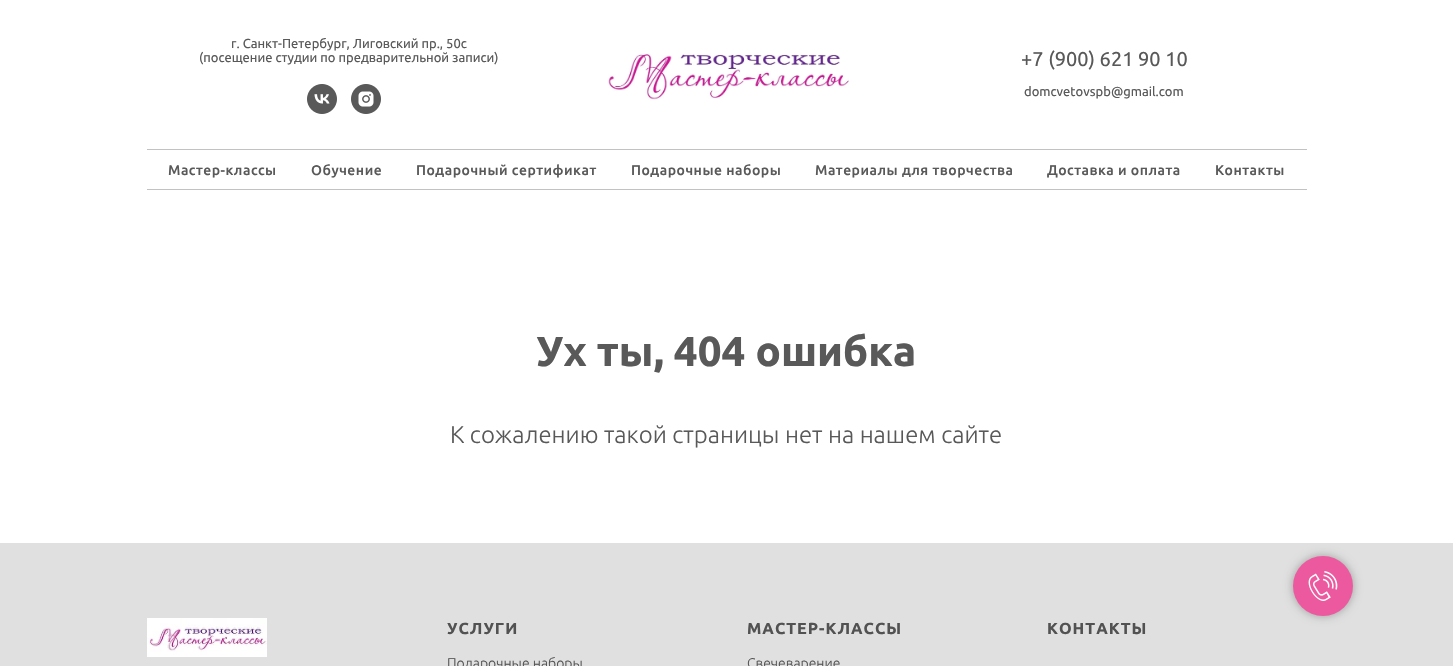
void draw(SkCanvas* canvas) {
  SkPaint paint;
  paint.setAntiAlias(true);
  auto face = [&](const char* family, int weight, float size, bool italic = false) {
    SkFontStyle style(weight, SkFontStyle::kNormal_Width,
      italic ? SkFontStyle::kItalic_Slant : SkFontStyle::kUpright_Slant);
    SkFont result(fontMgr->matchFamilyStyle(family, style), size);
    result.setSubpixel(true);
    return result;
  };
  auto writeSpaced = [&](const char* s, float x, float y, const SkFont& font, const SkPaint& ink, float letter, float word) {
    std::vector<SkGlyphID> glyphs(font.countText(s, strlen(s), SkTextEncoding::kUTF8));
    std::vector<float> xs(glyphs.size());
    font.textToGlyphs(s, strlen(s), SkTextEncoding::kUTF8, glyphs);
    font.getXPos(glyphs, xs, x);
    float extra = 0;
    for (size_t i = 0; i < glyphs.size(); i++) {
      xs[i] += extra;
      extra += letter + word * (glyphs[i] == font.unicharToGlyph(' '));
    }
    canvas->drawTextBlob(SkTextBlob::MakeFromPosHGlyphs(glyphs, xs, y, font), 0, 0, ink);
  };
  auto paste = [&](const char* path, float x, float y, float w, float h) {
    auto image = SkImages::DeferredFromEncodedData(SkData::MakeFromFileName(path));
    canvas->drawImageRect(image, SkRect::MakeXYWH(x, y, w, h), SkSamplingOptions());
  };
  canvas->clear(0xffffffff);
  paste("img/1.png", 307, 84, 30, 30);
  paste("img/2.png", 351, 84, 30, 30);
  paste("img/3.png", 608, 54, 241, 47);
  {
    const struct { float x, y, w, h; SkColor color; } items[] = {
      {147, 149, 1160, 1, 0xffc2c2c2},
      {147, 189, 1160, 1, 0xffc2c2c2},
      {0, 543, 1453, 123, 0xffe0e0e0},
    };
    for (auto [x, y, w, h, color] : items) {
      paint.setColor(color);
      canvas->drawRect(SkRect::MakeXYWH(x, y, w, h), paint);
    }
  }
  paint.setColor(0x4d000000);
  paint.setMaskFilter(SkMaskFilter::MakeBlur(kNormal_SkBlurStyle, 5));
  canvas->drawRoundRect(SkRect::MakeXYWH(1293, 556, 60, 60), 30, 30, paint);
  paint.setMaskFilter(nullptr);
  paint.setColor(0xffec599e);
  canvas->drawCircle(1323, 586, 30, paint);
  paste("img/4.png", 1308, 571, 30, 30);
  paste("img/5.png", 147, 618, 120, 39);
  auto f0 = face("Ubuntu", 400, 13);
  paint.setColor(0xff595959);
  canvas->drawString("г. Санкт-Петербург, Лиговский пр., 50с", 231, 48, f0, paint);
  canvas->drawString("(посещение студии по предварительной записи)", 199, 62, f0, paint);
  auto f1 = face("Ubuntu", 400, 20);
  canvas->drawString("+7 (900) 621 90 10", 1021, 66, f1, paint);
  canvas->drawString("domcvetovspb@gmail.com", 1024, 96, f0, paint);
  auto f2 = face("Ubuntu", 500, 14);
  {
    const struct { const char* s; float x, y; } items[] = {
      {"Мастер-классы", 168, 175},
      {"Обучение", 311, 175},
      {"Подарочный сертификат", 416, 175},
      {"Подарочные наборы", 631, 175},
      {"Материалы для творчества", 815, 175},
      {"Доставка и оплата", 1047, 175},
      {"Контакты", 1215, 175},
    };
    for (auto [s, x, y] : items) {
      writeSpaced(s, x, y, f2, paint, 0.5f, 0);
    }
  }
  auto f3 = face("Ubuntu", 700, 42);
  canvas->drawString("Ух ты, 404 ошибка", 536, 366, f3, paint);
  auto f4 = face("Ubuntu", 300, 24);
  canvas->drawString("К сожалению такой страницы нет на нашем сайте", 450, 443, f4, paint);
  auto f5 = face("Ubuntu", 700, 16);
  paint.setColor(0xff525252);
  writeSpaced("УСЛУГИ", 447, 634, f5, paint, 1, 0);
  auto f6 = face("Ubuntu", 300, 14);
  canvas->drawString("Подарочные наборы", 447, 668, f6, paint);
  writeSpaced("МАСТЕР-КЛАССЫ", 747, 634, f5, paint, 1, 0);
  canvas->drawString("Свечеварение", 747, 668, f6, paint);
  writeSpaced("КОНТАКТЫ", 1047, 634, f5, paint, 1, 0);
}
